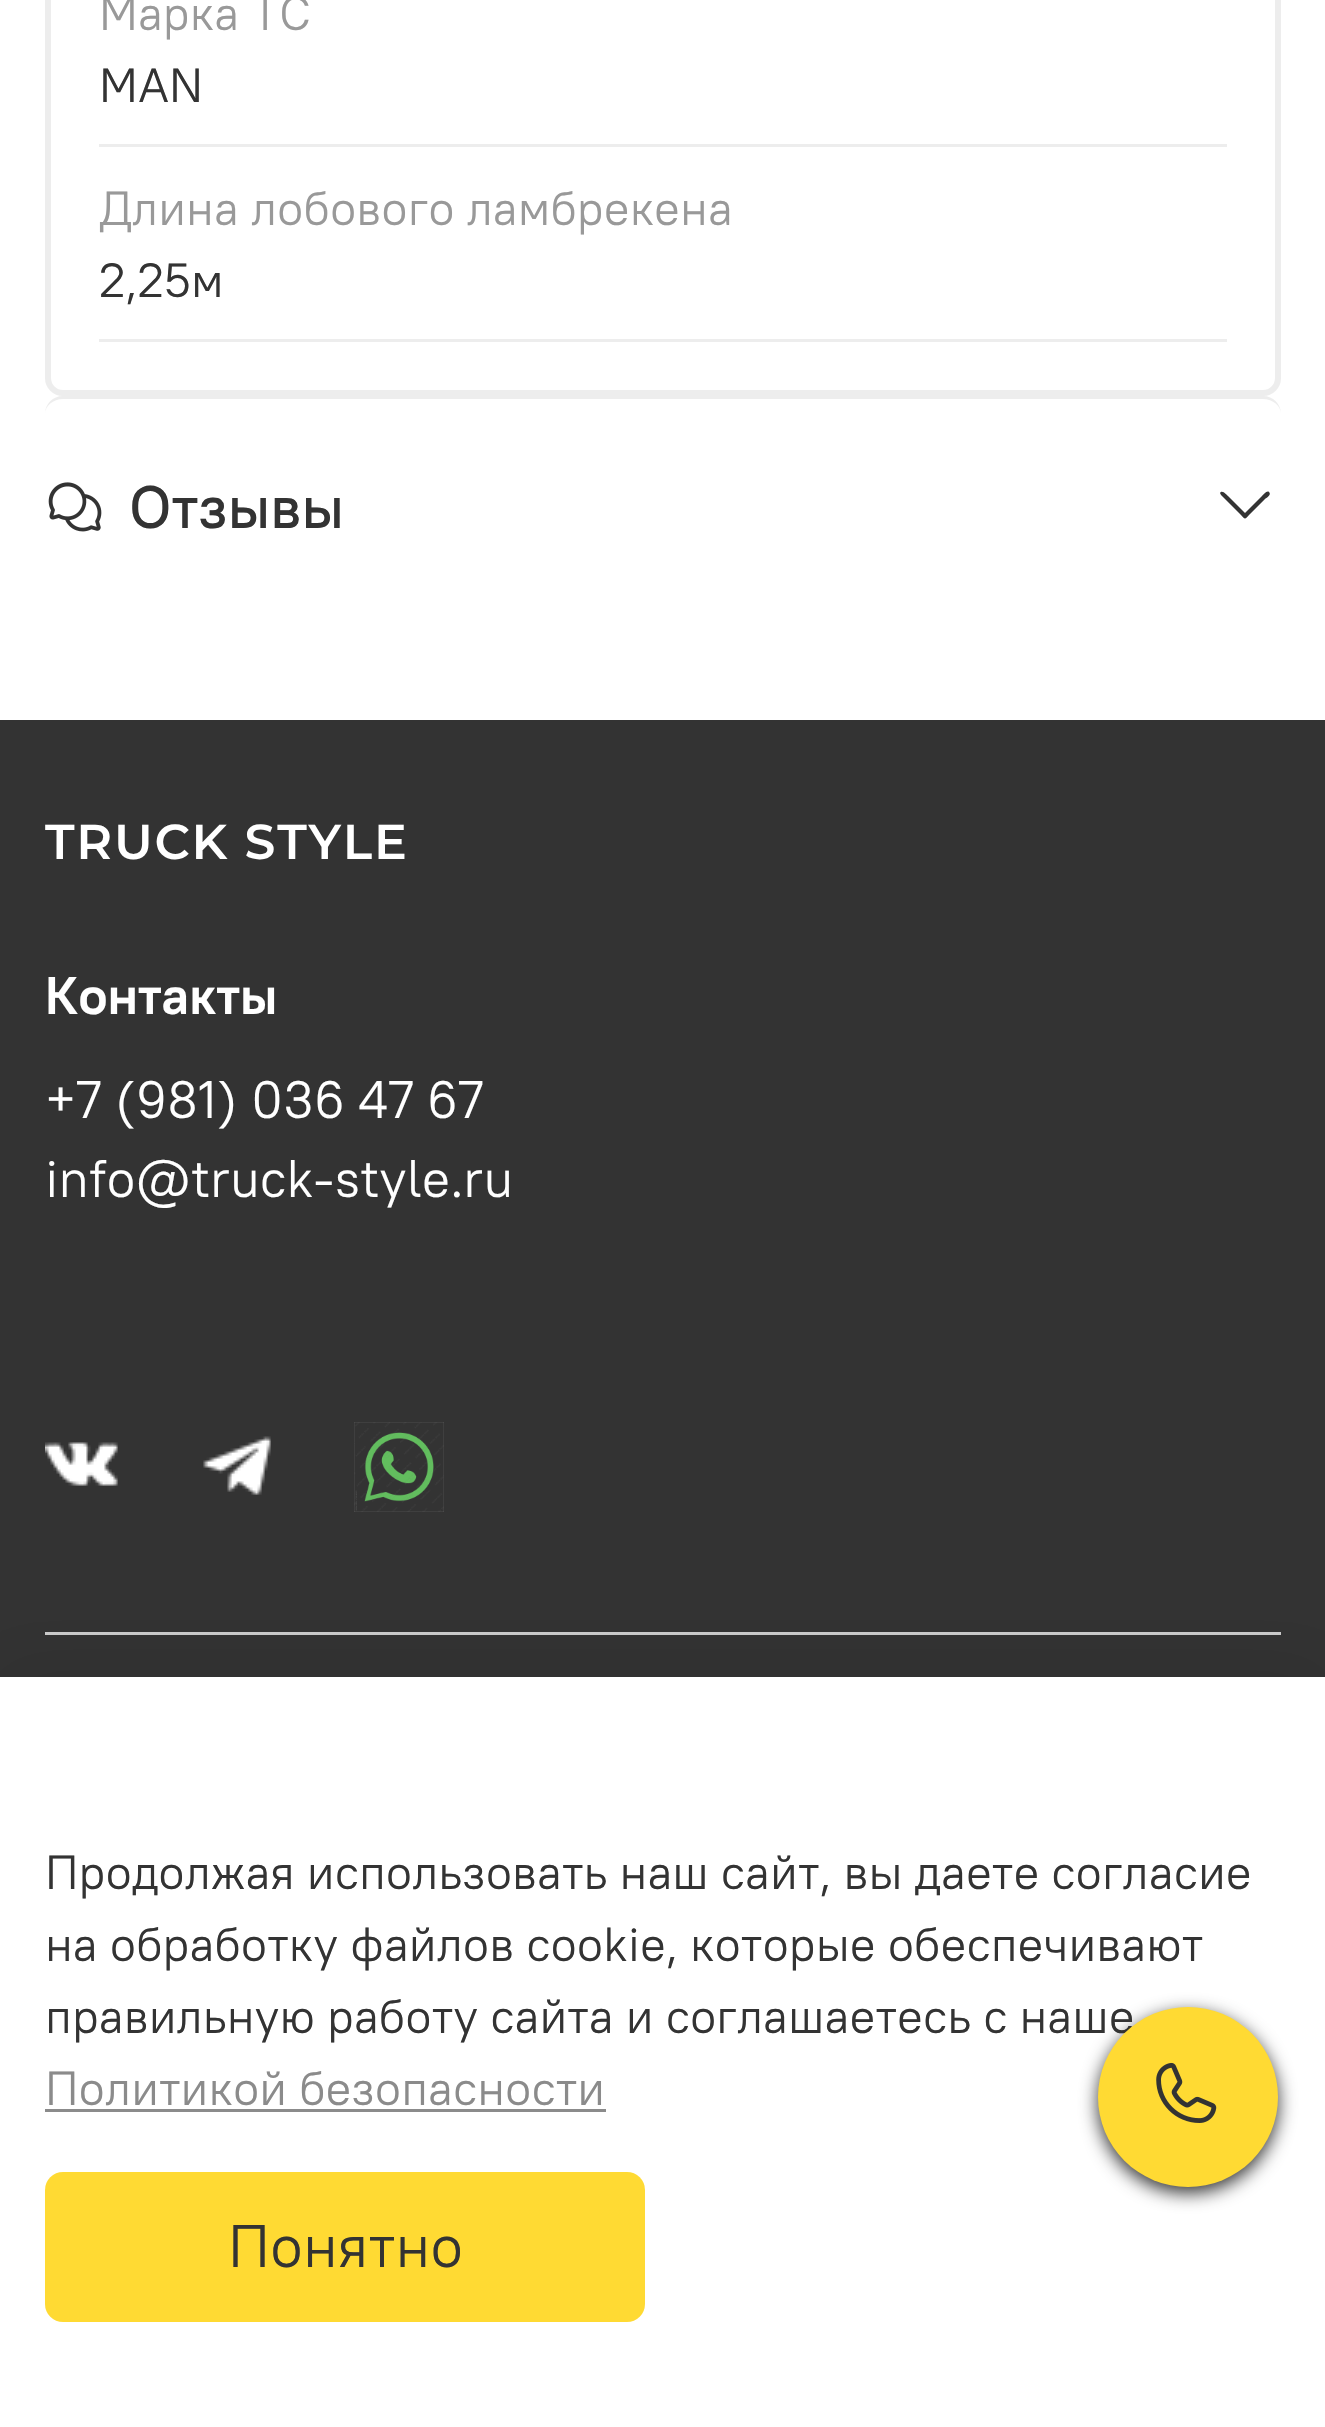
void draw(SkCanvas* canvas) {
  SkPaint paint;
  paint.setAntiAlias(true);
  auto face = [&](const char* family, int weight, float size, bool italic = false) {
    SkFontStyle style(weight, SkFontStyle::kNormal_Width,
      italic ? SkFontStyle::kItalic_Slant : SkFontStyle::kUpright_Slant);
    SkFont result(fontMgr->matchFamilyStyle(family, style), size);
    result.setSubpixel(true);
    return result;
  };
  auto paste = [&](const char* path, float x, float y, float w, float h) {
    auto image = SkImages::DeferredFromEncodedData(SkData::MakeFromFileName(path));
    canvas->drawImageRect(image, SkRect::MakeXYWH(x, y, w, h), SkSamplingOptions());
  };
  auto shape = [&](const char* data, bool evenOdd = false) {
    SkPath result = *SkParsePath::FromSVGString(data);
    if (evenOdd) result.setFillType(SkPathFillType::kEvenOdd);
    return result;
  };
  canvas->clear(0xffffffff);
  paint.setStroke(true);
  paint.setStrokeWidth(6);
  paint.setColor(0xffededed);
  canvas->drawRoundRect(SkRect::MakeXYWH(48, -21, 1230, 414), 15, 15, paint);
  paint.setStroke(false);
  canvas->drawRect(SkRect::MakeXYWH(99, 144, 1128, 3), paint);
  canvas->drawRect(SkRect::MakeXYWH(99, 339, 1128, 3), paint);
  canvas->drawPath(shape("M63 396C53 396 45 404 45 414C45 406 53 399 63 399H1263C1273 399 1281 406 1281 414C1281 404 1273 396 1263 396Z"), paint);
  paste("img/1.png", 48, 482, 54, 50);
  paint.setColor(0xff333333);
  canvas->drawPath(shape("M1269 492C1267 490 1263 495 1262 496L1245 513L1228 496C1227 495 1222 489 1220 493L1221 495L1240 514C1246 520 1244 520 1250 514L1265 499C1266 498 1272 495 1269 492Z"), paint);
  canvas->drawRect(SkRect::MakeXYWH(0, 720, 1325, 957), paint);
  paste("img/2.png", 45, 824, 360, 36);
  paste("img/3.png", 45, 1442, 73, 44);
  paste("img/4.png", 203, 1436, 68, 59);
  paste("img/5.png", 354, 1422, 90, 90);
  paint.setColor(0xffcccccc);
  canvas->drawRect(SkRect::MakeXYWH(45, 1632, 1236, 3), paint);
  paint.setColor(0x17000000);
  paint.setMaskFilter(SkMaskFilter::MakeBlur(kNormal_SkBlurStyle, 34.5f));
  canvas->drawRect(SkRect::MakeXYWH(-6, 1668, 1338, 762), paint);
  paint.setMaskFilter(nullptr);
  paint.setColor(0xffffffff);
  canvas->drawRect(SkRect::MakeXYWH(0, 1677, 1325, 750), paint);
  paint.setColor(0xff8b8b8b);
  canvas->drawRect(SkRect::MakeXYWH(45, 2109, 561, 3), paint);
  paint.setColor(0xffffda33);
  canvas->drawRoundRect(SkRect::MakeXYWH(45, 2172, 600, 150), 18, 18, paint);
  paint.setColor(0xff333333);
  paint.setMaskFilter(SkMaskFilter::MakeBlur(kNormal_SkBlurStyle, 9));
  canvas->drawRoundRect(SkRect::MakeXYWH(1098, 2013, 180, 180), 90, 90, paint);
  paint.setMaskFilter(nullptr);
  auto f0 = face("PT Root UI", 400, 48);
  paint.setColor(0xff999999);
  canvas->drawString("Марка ТС", 99, 30, f0, paint);
  paint.setColor(0xff333333);
  canvas->drawString("MAN", 99, 102, f0, paint);
  paint.setColor(0xff999999);
  canvas->drawString("Длина лобового ламбрекена", 99, 225, f0, paint);
  paint.setColor(0xff333333);
  canvas->drawString("2,25м", 99, 297, f0, paint);
  auto f1 = face("PT Root UI", 500, 60);
  canvas->drawString("Отзывы", 129, 528, f1, paint);
  auto f2 = face("PT Root UI", 700, 52.75f);
  paint.setColor(0xffffffff);
  canvas->drawString("Контакты", 45, 1014, f2, paint);
  auto f3 = face("PT Root UI", 400, 52.75f);
  canvas->drawString("+7 (981) 036 47 67", 45, 1118, f3, paint);
  canvas->drawString("info@truck-style.ru", 45, 1197, f3, paint);
  paint.setColor(0xff333333);
  {
    const struct { const char* s; float x, y; } items[] = {
      {"Продолжая использовать наш сайт, вы даете согласие", 45, 1889},
      {"на обработку файлов cookie, которые обеспечивают", 45, 1961},
      {"правильную работу сайта и соглашаетесь с наше", 45, 2033},
    };
    for (auto [s, x, y] : items) {
      canvas->drawString(s, x, y, f0, paint);
    }
  }
  paint.setColor(0xff8b8b8b);
  canvas->drawString("Политикой безопасности", 45, 2105, f0, paint);
  auto f4 = face("PT Root UI", 400, 60);
  paint.setColor(0xff333333);
  canvas->drawString("Понятно", 228, 2267, f4, paint);
  paint.setColor(0xffffda33);
  canvas->drawCircle(1188, 2097, 90, paint);
  paste("img/6.png", 1156, 2062, 61, 61);
}
